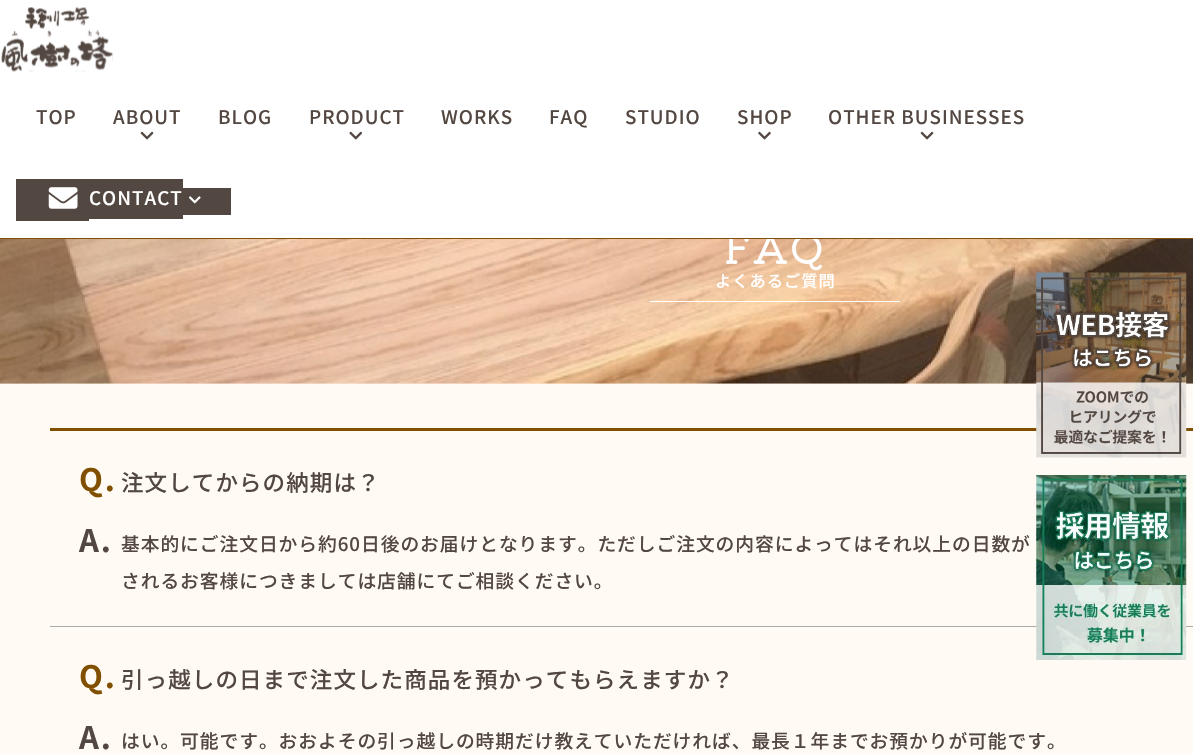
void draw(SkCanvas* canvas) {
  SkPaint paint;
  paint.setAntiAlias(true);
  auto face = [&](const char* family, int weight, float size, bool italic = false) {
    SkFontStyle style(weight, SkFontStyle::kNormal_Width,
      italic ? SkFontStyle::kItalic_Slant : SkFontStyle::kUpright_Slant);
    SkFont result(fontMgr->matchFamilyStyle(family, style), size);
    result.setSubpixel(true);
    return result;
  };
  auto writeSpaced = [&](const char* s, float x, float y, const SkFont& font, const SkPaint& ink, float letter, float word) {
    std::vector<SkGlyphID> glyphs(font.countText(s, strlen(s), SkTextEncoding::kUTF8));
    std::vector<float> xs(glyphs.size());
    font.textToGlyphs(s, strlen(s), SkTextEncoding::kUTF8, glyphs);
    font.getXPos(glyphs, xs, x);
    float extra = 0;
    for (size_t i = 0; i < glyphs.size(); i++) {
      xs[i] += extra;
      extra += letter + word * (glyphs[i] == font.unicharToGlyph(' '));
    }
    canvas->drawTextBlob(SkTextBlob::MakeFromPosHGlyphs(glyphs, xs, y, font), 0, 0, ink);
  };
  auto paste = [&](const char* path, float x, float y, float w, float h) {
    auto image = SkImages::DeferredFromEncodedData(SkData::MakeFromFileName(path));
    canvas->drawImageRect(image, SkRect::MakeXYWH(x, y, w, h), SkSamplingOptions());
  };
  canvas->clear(0xfffffbf4);
  paint.setColor(0xffffffff);
  canvas->drawRect(SkRect::MakeXYWH(0, 0, 1193, 238), paint);
  paste("img/1.png", 1, 7, 112, 65);
  paste("img/2.png", 140, 131, 14, 9);
  paste("img/3.png", 349, 131, 14, 9);
  paste("img/4.png", 758, 131, 13, 9);
  paste("img/2.png", 920, 131, 14, 9);
  {
    const struct { float x, y, w, h; SkColor color; } items[] = {
      {16, 179, 73, 42, 0xff534741},
      {89, 179, 94, 40, 0xff534741},
      {183, 188, 48, 27, 0xff534741},
    };
    for (auto [x, y, w, h, color] : items) {
      paint.setColor(color);
      canvas->drawRect(SkRect::MakeXYWH(x, y, w, h), paint);
    }
  }
  paste("img/5.png", 48, 187, 30, 22);
  paste("img/6.png", 189, 196, 12, 8);
  paste("img/9.png", 0, 239, 1193, 145);
  paint.setColor(0xff814f00);
  canvas->drawRect(SkRect::MakeXYWH(50, 428, 1143, 3), paint);
  paste("img/7.png", 1036, 272, 151, 186);
  paint.setColor(0xffaaaaaa);
  canvas->drawRect(SkRect::MakeXYWH(50, 626, 1143, 1), paint);
  paste("img/8.png", 1036, 475, 151, 185);
  paint.setColor(0xffffffff);
  canvas->drawRect(SkRect::MakeXYWH(650, 301, 250, 1), paint);
  auto f0 = face("Noto Sans JP", 500, 18.75f);
  paint.setColor(0xff534741);
  {
    const struct { const char* s; float x, y; } items[] = {
      {"TOP", 36, 124},
      {"ABOUT", 113, 124},
      {"BLOG", 218, 124},
      {"PRODUCT", 309, 124},
      {"WORKS", 441, 124},
      {"FAQ", 549, 124},
      {"STUDIO", 625, 124},
      {"SHOP", 737, 124},
      {"OTHER BUSINESSES", 828, 124},
    };
    for (auto [s, x, y] : items) {
      writeSpaced(s, x, y, f0, paint, 1, 0);
    }
  }
  paint.setColor(0xffffffff);
  writeSpaced("CONTACT", 89, 205, f0, paint, 1, 0);
  auto f1 = face("Kiwi Maru", 500, 40);
  writeSpaced("FAQ", 724, 263, f1, paint, 2, 0);
  paint.setColor(0xff804f0f);
  canvas->drawRect(SkRect::MakeXYWH(0, 238, 1193, 1), paint);
  auto f2 = face("Noto Sans JP", 500, 16.25f);
  paint.setColor(0xffffffff);
  writeSpaced("よくあるご質問", 715, 287, f2, paint, 1, 0);
  auto f3 = face("Noto Sans JP", 700, 31);
  paint.setColor(0xff814f00);
  writeSpaced("Q.", 79, 491, f3, paint, 2, 0);
  auto f4 = face("Noto Sans JP", 500, 22.5f);
  paint.setColor(0xff534741);
  writeSpaced("注文してからの納期は？", 121, 491, f4, paint, 1.1f, 0);
  writeSpaced("A.", 79, 552, f3, paint, 2, 0);
  writeSpaced("基本的にご注文日から約60日後のお届けとなります。ただしご注文の内容によってはそれ以上の日数が", 121, 551, f0, paint, 0.95f, 0);
  writeSpaced("されるお客様につきましては店舗にてご相談ください。", 121, 588, f0, paint, 0.95f, 0);
  paint.setColor(0xff814f00);
  writeSpaced("Q.", 79, 688, f3, paint, 2, 0);
  paint.setColor(0xff534741);
  writeSpaced("引っ越しの日まで注文した商品を預かってもらえますか？", 121, 688, f4, paint, 1.1f, 0);
  writeSpaced("A.", 79, 749, f3, paint, 2, 0);
  writeSpaced("はい。可能です。おおよその引っ越しの時期だけ教えていただければ、最長１年までお預かりが可能です。", 121, 748, f0, paint, 0.95f, 0);
}
